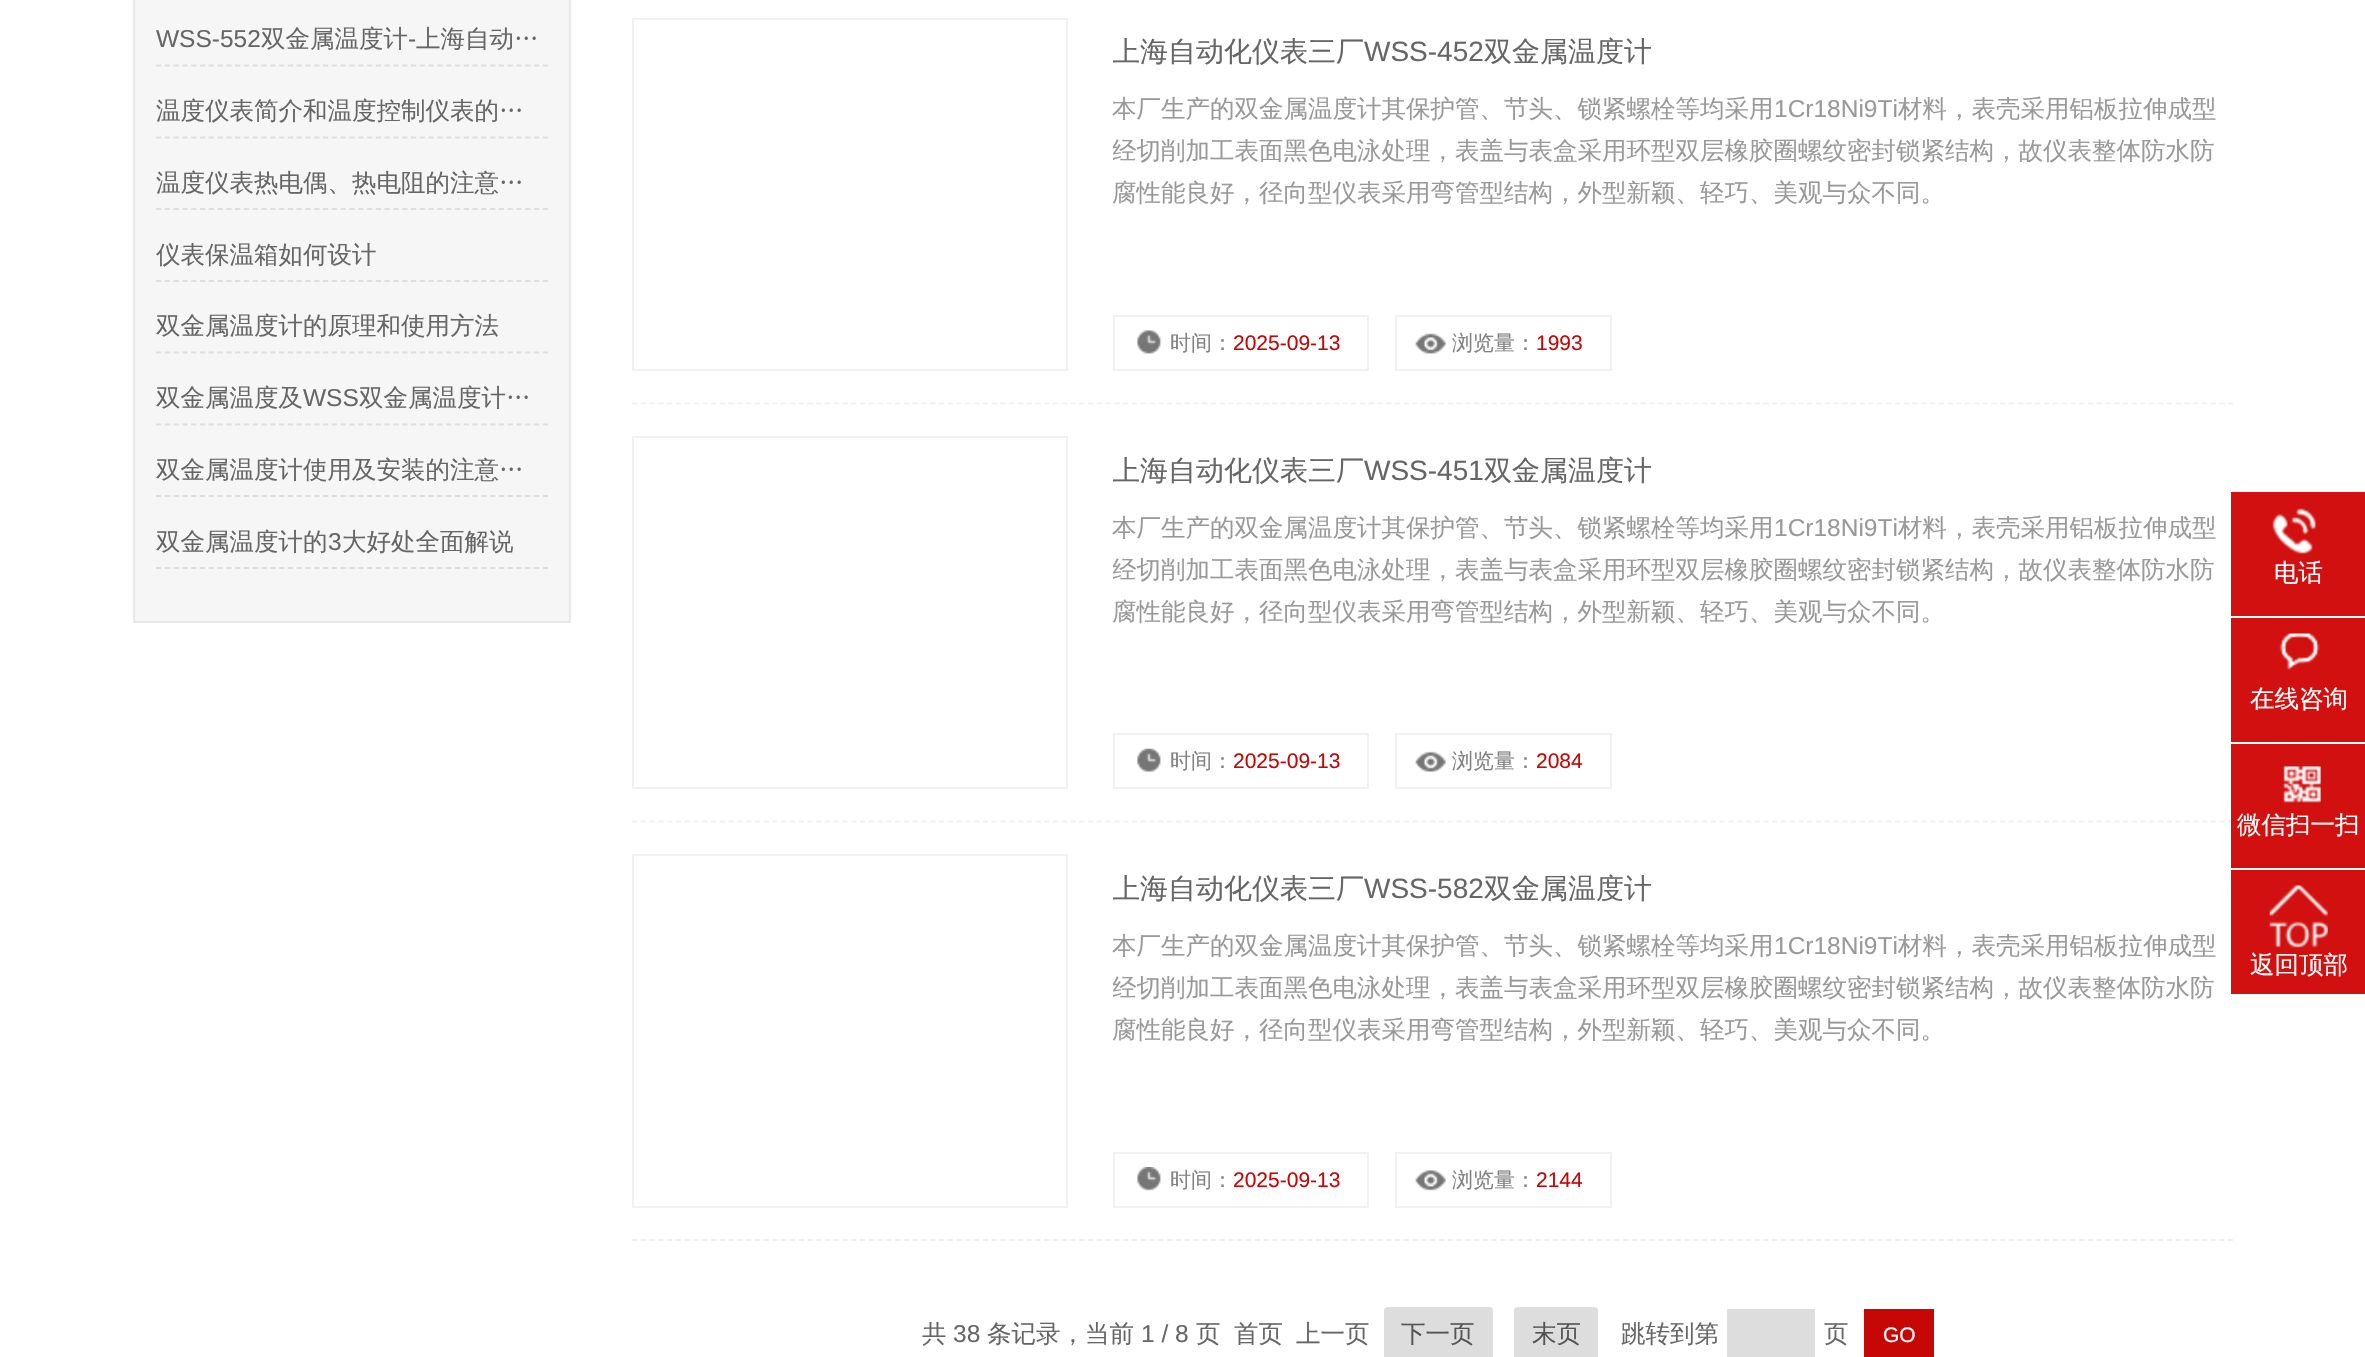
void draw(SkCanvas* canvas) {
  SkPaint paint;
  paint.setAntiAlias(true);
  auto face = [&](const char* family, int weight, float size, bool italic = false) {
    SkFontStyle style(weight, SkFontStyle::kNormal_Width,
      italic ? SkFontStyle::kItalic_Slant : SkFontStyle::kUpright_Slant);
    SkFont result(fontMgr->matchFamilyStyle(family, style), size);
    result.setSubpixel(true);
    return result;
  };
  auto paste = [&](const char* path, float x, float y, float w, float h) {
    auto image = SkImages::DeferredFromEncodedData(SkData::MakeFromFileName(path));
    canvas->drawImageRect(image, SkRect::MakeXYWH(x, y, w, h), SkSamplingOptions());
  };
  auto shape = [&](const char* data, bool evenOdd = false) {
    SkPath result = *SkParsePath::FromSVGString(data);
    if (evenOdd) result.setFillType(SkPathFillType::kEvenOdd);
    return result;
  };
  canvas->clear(0xffffffff);
  {
    const struct { float x, y, w, h; SkColor color; } items[] = {
      {135, 0, 434, 621, 0xfff6f6f6},
      {569, 0, 2, 623, 0xffe8e8e8},
      {133, 621, 438, 2, 0xffe8e8e8},
      {133, 0, 2, 623, 0xffe8e8e8},
    };
    for (auto [x, y, w, h, color] : items) {
      paint.setColor(color);
      canvas->drawRect(SkRect::MakeXYWH(x, y, w, h), paint);
    }
  }
  paint.setStroke(true);
  paint.setStrokeWidth(1.8f);
  paint.setColor(0xffdedede);
  paint.setPathEffect(SkDashPathEffect::Make({{5.25f, 3.54f}}, 0));
  canvas->drawPath(shape("M156 65.5H548"), paint);
  paint.setPathEffect(nullptr);
  paint.setPathEffect(SkDashPathEffect::Make({{5.25f, 3.54f}}, 0));
  canvas->drawPath(shape("M156 137.5H548"), paint);
  paint.setPathEffect(nullptr);
  paint.setPathEffect(SkDashPathEffect::Make({{5.25f, 3.54f}}, 0));
  canvas->drawPath(shape("M156 209H548"), paint);
  paint.setPathEffect(nullptr);
  paint.setPathEffect(SkDashPathEffect::Make({{5.25f, 3.54f}}, 0));
  canvas->drawPath(shape("M156 281H548"), paint);
  paint.setPathEffect(nullptr);
  paint.setPathEffect(SkDashPathEffect::Make({{5.25f, 3.54f}}, 0));
  canvas->drawPath(shape("M156 352.5H548"), paint);
  paint.setPathEffect(nullptr);
  paint.setPathEffect(SkDashPathEffect::Make({{5.25f, 3.54f}}, 0));
  canvas->drawPath(shape("M156 424.5H548"), paint);
  paint.setPathEffect(nullptr);
  paint.setPathEffect(SkDashPathEffect::Make({{5.25f, 3.54f}}, 0));
  canvas->drawPath(shape("M156 496H548"), paint);
  paint.setPathEffect(nullptr);
  paint.setPathEffect(SkDashPathEffect::Make({{5.25f, 3.54f}}, 0));
  canvas->drawPath(shape("M156 568H548"), paint);
  paint.setPathEffect(nullptr);
  paint.setColor(0xfff1f1f1);
  paint.setPathEffect(SkDashPathEffect::Make({{5.25f, 3.52f}}, 0));
  canvas->drawPath(shape("M632 403.5H2233"), paint);
  paint.setPathEffect(nullptr);
  paint.setStrokeWidth(2);
  canvas->drawRect(SkRect::MakeXYWH(633, 19, 434, 351), paint);
  paste("img/1.png", 1137, 330, 24, 24);
  canvas->drawRect(SkRect::MakeXYWH(1114, 316, 254, 54), paint);
  paste("img/2.png", 1415, 333, 31, 21);
  canvas->drawRect(SkRect::MakeXYWH(1396, 316, 215, 54), paint);
  paint.setStrokeWidth(1.8f);
  paint.setPathEffect(SkDashPathEffect::Make({{5.25f, 3.52f}}, 0));
  canvas->drawPath(shape("M632 821.5H2233"), paint);
  paint.setPathEffect(nullptr);
  paint.setStrokeWidth(2);
  canvas->drawRect(SkRect::MakeXYWH(633, 437, 434, 351), paint);
  paste("img/3.png", 1137, 748, 24, 24);
  canvas->drawRect(SkRect::MakeXYWH(1114, 734, 254, 54), paint);
  paste("img/4.png", 1415, 751, 31, 21);
  canvas->drawRect(SkRect::MakeXYWH(1396, 734, 215, 54), paint);
  paint.setStrokeWidth(1.8f);
  paint.setPathEffect(SkDashPathEffect::Make({{5.25f, 3.52f}}, 0));
  canvas->drawPath(shape("M632 1240H2233"), paint);
  paint.setPathEffect(nullptr);
  paint.setStrokeWidth(2);
  canvas->drawRect(SkRect::MakeXYWH(633, 855, 434, 352), paint);
  paste("img/5.png", 1137, 1167, 24, 24);
  canvas->drawRect(SkRect::MakeXYWH(1114, 1153, 254, 54), paint);
  paste("img/6.png", 1415, 1170, 31, 21);
  canvas->drawRect(SkRect::MakeXYWH(1396, 1153, 215, 54), paint);
  paint.setStroke(false);
  paint.setColor(0xffdddddd);
  canvas->drawRoundRect(SkRect::MakeXYWH(1384, 1307, 109, 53), 4, 4, paint);
  canvas->drawRoundRect(SkRect::MakeXYWH(1514, 1307, 84, 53), 4, 4, paint);
  {
    const struct { float x, y, w, h; SkColor color; } items[] = {
      {1727, 1309, 88, 48, 0xffdddddd},
      {1864, 1309, 70, 48, 0xffc70606},
      {2231, 492, 134, 124, 0xffd21010},
    };
    for (auto [x, y, w, h, color] : items) {
      paint.setColor(color);
      canvas->drawRect(SkRect::MakeXYWH(x, y, w, h), paint);
    }
  }
  paste("img/7.png", 2272, 508, 44, 46);
  canvas->drawRect(SkRect::MakeXYWH(2231, 618, 134, 124), paint);
  paste("img/8.png", 2279, 633, 41, 37);
  canvas->drawRect(SkRect::MakeXYWH(2231, 744, 134, 124), paint);
  paste("img/9.png", 2283, 766, 38, 37);
  canvas->drawRect(SkRect::MakeXYWH(2231, 870, 134, 124), paint);
  paste("img/10.png", 2269, 885, 59, 63);
  auto f0 = face("Liberation Sans", 400, 24.5f);
  paint.setColor(0xff666666);
  canvas->drawString("WSS-552", 156, 47, f0, paint);
  auto f1 = face("WenQuanYi Zen Hei", 500, 24.5f);
  canvas->drawString("双金属温度计", 261, 47, f1, paint);
  canvas->drawString("-", 408, 47, f0, paint);
  {
    const struct { const char* s; float x, y; } items[] = {
      {"上海自动…", 416, 47},
      {"温度仪表简介和温度控制仪表的…", 156, 119},
      {"温度仪表热电偶、热电阻的注意…", 156, 191},
      {"仪表保温箱如何设计", 156, 263},
      {"双金属温度计的原理和使用方法", 156, 334},
      {"双金属温度及", 156, 406},
    };
    for (auto [s, x, y] : items) {
      canvas->drawString(s, x, y, f1, paint);
    }
  }
  canvas->drawString("WSS", 303, 406, f0, paint);
  {
    const struct { const char* s; float x, y; } items[] = {
      {"双金属温度计…", 359, 406},
      {"双金属温度计使用及安装的注意…", 156, 478},
      {"双金属温度计的", 156, 550},
    };
    for (auto [s, x, y] : items) {
      canvas->drawString(s, x, y, f1, paint);
    }
  }
  canvas->drawString("3", 328, 550, f0, paint);
  canvas->drawString("大好处全面解说", 342, 550, f1, paint);
  canvas->save();
  canvas->clipRect(SkRect::MakeXYWH(1113, 18, 1120, 70));
  auto f2 = face("WenQuanYi Zen Hei", 500, 28);
  canvas->drawString("上海自动化仪表三厂", 1112, 61, f2, paint);
  canvas->restore();
  auto f3 = face("Liberation Sans", 400, 28);
  canvas->drawString("WSS-452", 1364, 61, f3, paint);
  canvas->drawString("双金属温度计", 1484, 61, f2, paint);
  paint.setColor(0xff999999);
  canvas->drawString("本厂生产的双金属温度计其保护管、节头、锁紧螺栓等均采用", 1112, 117, f1, paint);
  canvas->drawString("1Cr18Ni9Ti", 1774, 117, f0, paint);
  canvas->drawString("材料，表壳采用铝板拉伸成型", 1898, 117, f1, paint);
  canvas->save();
  canvas->clipRect(SkRect::MakeXYWH(1113, 88, 1120, 157));
  canvas->drawString("经切削加工表面黑色电泳处理，表盖与表盒采用环型双层橡胶圈螺纹密封锁紧结构，故仪表整体防水防", 1112, 159, f1, paint);
  canvas->restore();
  canvas->drawString("腐性能良好，径向型仪表采用弯管型结构，外型新颖、轻巧、美观与众不同。", 1112, 201, f1, paint);
  auto f4 = face("WenQuanYi Zen Hei", 500, 21);
  paint.setColor(0xff828282);
  canvas->drawString("时间：", 1170, 350, f4, paint);
  auto f5 = face("Liberation Sans", 400, 21);
  paint.setColor(0xffc70606);
  canvas->drawString("2025-09-13", 1233, 350, f5, paint);
  paint.setColor(0xff828282);
  canvas->drawString("浏览量：", 1452, 350, f4, paint);
  paint.setColor(0xffc70606);
  canvas->drawString("1993", 1536, 350, f5, paint);
  canvas->save();
  canvas->clipRect(SkRect::MakeXYWH(1113, 436, 1120, 70));
  paint.setColor(0xff666666);
  canvas->drawString("上海自动化仪表三厂", 1112, 480, f2, paint);
  canvas->restore();
  canvas->drawString("WSS-451", 1364, 480, f3, paint);
  canvas->drawString("双金属温度计", 1484, 480, f2, paint);
  paint.setColor(0xff999999);
  canvas->drawString("本厂生产的双金属温度计其保护管、节头、锁紧螺栓等均采用", 1112, 536, f1, paint);
  canvas->drawString("1Cr18Ni9Ti", 1774, 536, f0, paint);
  canvas->drawString("材料，表壳采用铝板拉伸成型", 1898, 536, f1, paint);
  canvas->save();
  canvas->clipRect(SkRect::MakeXYWH(1113, 506, 1120, 157));
  canvas->drawString("经切削加工表面黑色电泳处理，表盖与表盒采用环型双层橡胶圈螺纹密封锁紧结构，故仪表整体防水防", 1112, 578, f1, paint);
  canvas->restore();
  canvas->drawString("腐性能良好，径向型仪表采用弯管型结构，外型新颖、轻巧、美观与众不同。", 1112, 620, f1, paint);
  paint.setColor(0xff828282);
  canvas->drawString("时间：", 1170, 768, f4, paint);
  paint.setColor(0xffc70606);
  canvas->drawString("2025-09-13", 1233, 768, f5, paint);
  paint.setColor(0xff828282);
  canvas->drawString("浏览量：", 1452, 768, f4, paint);
  paint.setColor(0xffc70606);
  canvas->drawString("2084", 1536, 768, f5, paint);
  canvas->save();
  canvas->clipRect(SkRect::MakeXYWH(1113, 854, 1120, 70));
  paint.setColor(0xff666666);
  canvas->drawString("上海自动化仪表三厂", 1112, 898, f2, paint);
  canvas->restore();
  canvas->drawString("WSS-582", 1364, 898, f3, paint);
  canvas->drawString("双金属温度计", 1484, 898, f2, paint);
  paint.setColor(0xff999999);
  canvas->drawString("本厂生产的双金属温度计其保护管、节头、锁紧螺栓等均采用", 1112, 954, f1, paint);
  canvas->drawString("1Cr18Ni9Ti", 1774, 954, f0, paint);
  canvas->drawString("材料，表壳采用铝板拉伸成型", 1898, 954, f1, paint);
  canvas->save();
  canvas->clipRect(SkRect::MakeXYWH(1113, 924, 1120, 158));
  canvas->drawString("经切削加工表面黑色电泳处理，表盖与表盒采用环型双层橡胶圈螺纹密封锁紧结构，故仪表整体防水防", 1112, 996, f1, paint);
  canvas->restore();
  canvas->drawString("腐性能良好，径向型仪表采用弯管型结构，外型新颖、轻巧、美观与众不同。", 1112, 1038, f1, paint);
  paint.setColor(0xff828282);
  canvas->drawString("时间：", 1170, 1187, f4, paint);
  paint.setColor(0xffc70606);
  canvas->drawString("2025-09-13", 1233, 1187, f5, paint);
  paint.setColor(0xff828282);
  canvas->drawString("浏览量：", 1452, 1187, f4, paint);
  paint.setColor(0xffc70606);
  canvas->drawString("2144", 1536, 1187, f5, paint);
  paint.setColor(0xff666666);
  canvas->drawString("共", 922, 1342, f1, paint);
  canvas->drawString("38", 953, 1342, f0, paint);
  canvas->drawString("条记录，当前", 987, 1342, f1, paint);
  canvas->drawString("1 / 8", 1141, 1342, f0, paint);
  {
    const struct { const char* s; float x, y; } items[] = {
      {"页", 1196, 1342},
      {"首页", 1234, 1342},
      {"上一页", 1296, 1342},
    };
    for (auto [s, x, y] : items) {
      canvas->drawString(s, x, y, f1, paint);
    }
  }
  paint.setColor(0xff555555);
  canvas->drawString("下一页", 1401, 1342, f1, paint);
  canvas->drawString("末页", 1532, 1342, f1, paint);
  paint.setColor(0xff666666);
  canvas->drawString("跳转到第", 1621, 1342, f1, paint);
  canvas->drawString("页", 1824, 1342, f1, paint);
  paint.setColor(0xffffffff);
  canvas->drawString("GO", 1883, 1342, f5, paint);
  {
    const struct { const char* s; float x, y; } items[] = {
      {"电话", 2274, 581},
      {"在线咨询", 2250, 707},
      {"微信扫一扫", 2237, 833},
      {"返回顶部", 2250, 973},
    };
    for (auto [s, x, y] : items) {
      canvas->drawString(s, x, y, f1, paint);
    }
  }
}
